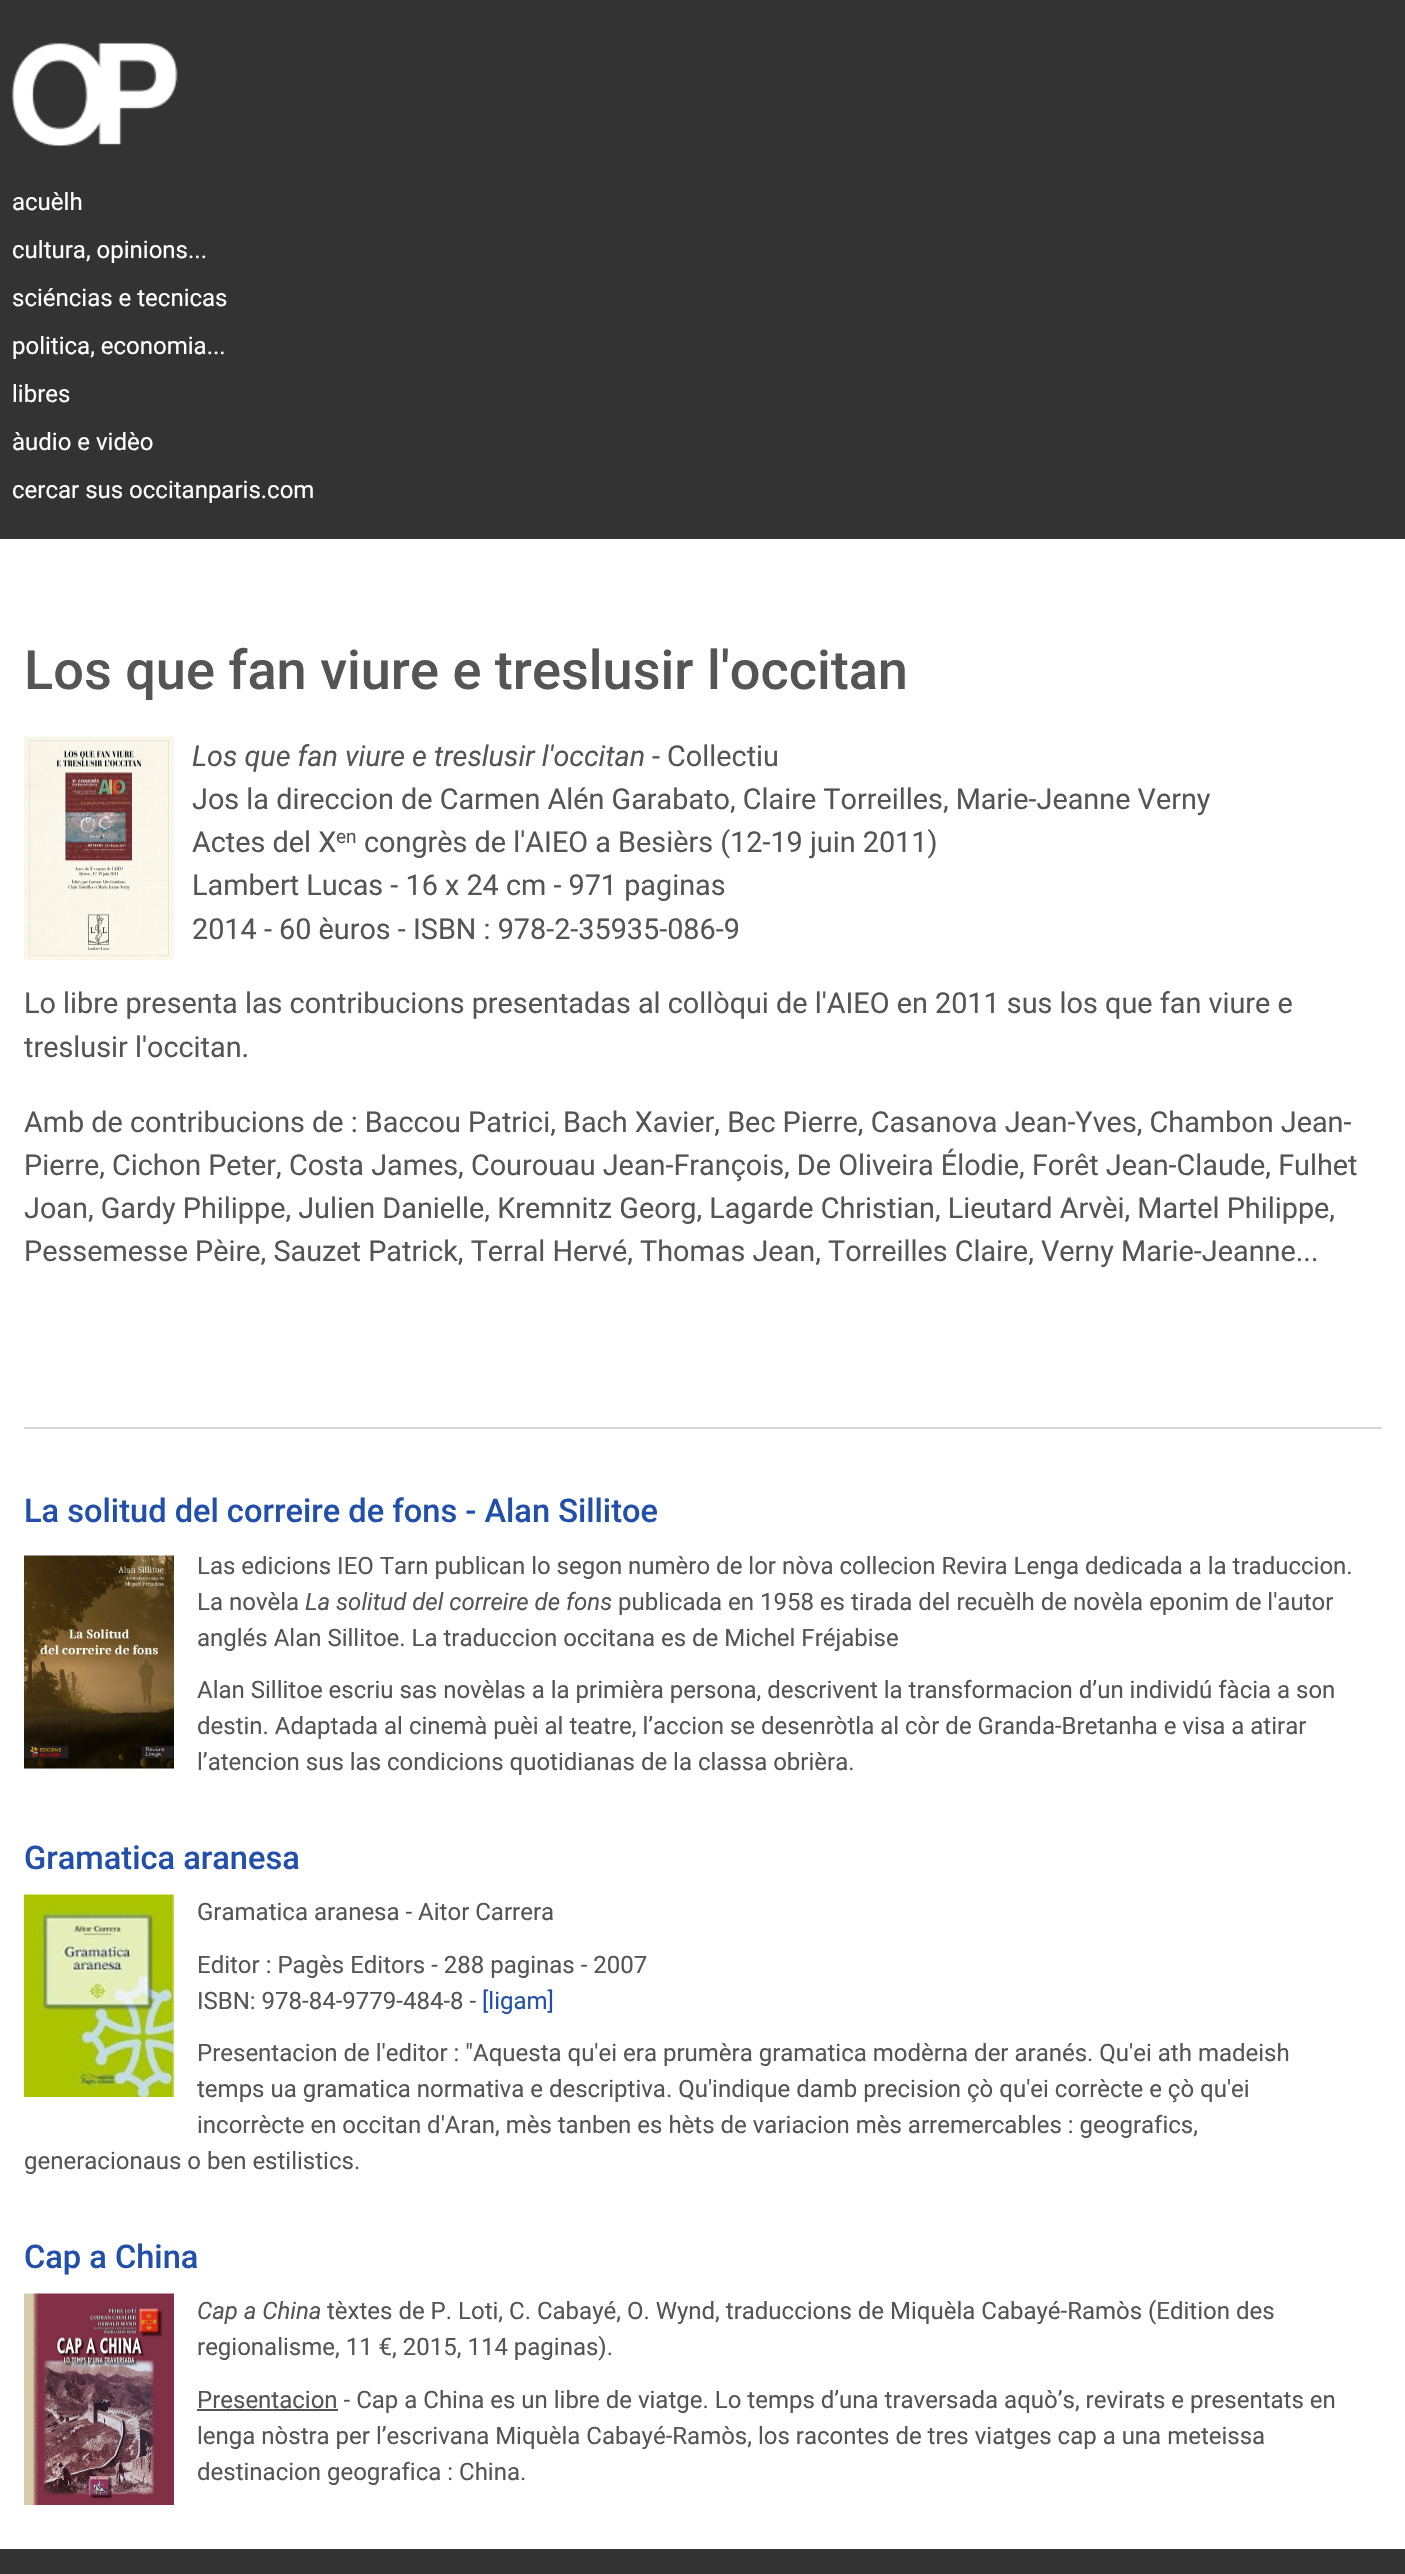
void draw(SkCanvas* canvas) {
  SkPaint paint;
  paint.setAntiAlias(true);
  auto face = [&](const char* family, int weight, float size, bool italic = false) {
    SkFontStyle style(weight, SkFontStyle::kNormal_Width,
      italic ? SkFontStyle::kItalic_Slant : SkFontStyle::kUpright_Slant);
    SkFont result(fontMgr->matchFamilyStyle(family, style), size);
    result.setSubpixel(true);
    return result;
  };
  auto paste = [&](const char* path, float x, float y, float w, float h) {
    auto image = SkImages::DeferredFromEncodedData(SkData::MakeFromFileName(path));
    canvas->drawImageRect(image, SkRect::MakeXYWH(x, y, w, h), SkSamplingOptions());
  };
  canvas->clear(0xffffffff);
  paint.setColor(0xff333333);
  canvas->drawRect(SkRect::MakeXYWH(0, 0, 1405, 539), paint);
  paste("img/1.png", 12, 42, 166, 105);
  paste("img/2.png", 24, 736, 150, 224);
  paint.setColor(0xffd5d5d5);
  canvas->drawRect(SkRect::MakeXYWH(24, 1427, 1358, 2), paint);
  paste("img/3.png", 24, 1555, 150, 214);
  paste("img/4.png", 24, 1894, 150, 203);
  paste("img/5.png", 24, 2293, 150, 212);
  paint.setColor(0xff555555);
  canvas->drawRect(SkRect::MakeXYWH(197, 2409, 141, 2), paint);
  paint.setColor(0xff333333);
  canvas->drawRect(SkRect::MakeXYWH(0, 2549, 1405, 25), paint);
  auto f0 = face("Roboto", 400, 24);
  paint.setColor(0xffffffff);
  {
    const struct { const char* s; float x, y; } items[] = {
      {"acuèlh", 12, 210},
      {"cultura, opinions...", 12, 258},
      {"sciéncias e tecnicas", 12, 306},
      {"politica, economia...", 12, 354},
      {"libres", 12, 402},
      {"àudio e vidèo", 12, 450},
      {"cercar sus occitanparis.com", 12, 498},
    };
    for (auto [s, x, y] : items) {
      canvas->drawString(s, x, y, f0, paint);
    }
  }
  auto f1 = face("Roboto", 500, 54.1f);
  paint.setColor(0xff555555);
  canvas->drawString("Los que fan viure e treslusir l'occitan", 24, 689, f1, paint);
  auto f2 = face("Roboto", 400, 28.8f, true);
  canvas->drawString("Los que fan viure e treslusir l'occitan", 192, 766, f2, paint);
  auto f3 = face("Roboto", 400, 28.8f);
  {
    const struct { const char* s; float x, y; } items[] = {
      {"- Collectiu", 652, 766},
      {"Jos la direccion de Carmen Alén Garabato, Claire Torreilles, Marie-Jeanne Verny", 192, 809},
      {"Actes del X", 192, 852},
    };
    for (auto [s, x, y] : items) {
      canvas->drawString(s, x, y, f3, paint);
    }
  }
  auto f4 = face("Roboto", 400, 19);
  canvas->drawString("en", 336, 843, f4, paint);
  {
    const struct { const char* s; float x, y; } items[] = {
      {"congrès de l'AIEO a Besièrs (12-19 juin 2011)", 364, 852},
      {"Lambert Lucas - 16 x 24 cm - 971 paginas", 192, 895},
      {"2014 - 60 èuros - ISBN : 978-2-35935-086-9", 192, 939},
      {"Lo libre presenta las contribucions presentadas al collòqui de l'AIEO en 2011 sus los que fan viure e", 24, 1013},
      {"treslusir l'occitan.", 24, 1057},
      {"Amb de contribucions de : Baccou Patrici, Bach Xavier, Bec Pierre, Casanova Jean-Yves, Chambon Jean-", 24, 1132},
      {"Pierre, Cichon Peter, Costa James, Courouau Jean-François, De Oliveira Élodie, Forêt Jean-Claude, Fulhet", 24, 1175},
      {"Joan, Gardy Philippe, Julien Danielle, Kremnitz Georg, Lagarde Christian, Lieutard Arvèi, Martel Philippe,", 24, 1218},
      {"Pessemesse Pèire, Sauzet Patrick, Terral Hervé, Thomas Jean, Torreilles Claire, Verny Marie-Jeanne...", 24, 1261},
    };
    for (auto [s, x, y] : items) {
      canvas->drawString(s, x, y, f3, paint);
    }
  }
  auto f5 = face("Roboto", 500, 32.6f);
  paint.setColor(0xff224faa);
  canvas->drawString("La solitud del correire de fons - Alan Sillitoe", 24, 1522, f5, paint);
  paint.setColor(0xff555555);
  canvas->drawString("Las edicions IEO Tarn publican lo segon numèro de lor nòva collecion Revira Lenga dedicada a la traduccion.", 197, 1574, f0, paint);
  canvas->drawString("La novèla", 197, 1610, f0, paint);
  auto f6 = face("Roboto", 400, 24, true);
  canvas->drawString("La solitud del correire de fons", 305, 1610, f6, paint);
  {
    const struct { const char* s; float x, y; } items[] = {
      {"publicada en 1958 es tirada del recuèlh de novèla eponim de l'autor", 618, 1610},
      {"anglés Alan Sillitoe. La traduccion occitana es de Michel Fréjabise", 197, 1646},
      {"Alan Sillitoe escriu sas novèlas a la primièra persona, descrivent la transformacion d’un individú fàcia a son", 197, 1698},
      {"destin. Adaptada al cinemà puèi al teatre, l’accion se desenròtla al còr de Granda-Bretanha e visa a atirar", 197, 1734},
      {"l’atencion sus las condicions quotidianas de la classa obrièra.", 197, 1770},
    };
    for (auto [s, x, y] : items) {
      canvas->drawString(s, x, y, f0, paint);
    }
  }
  paint.setColor(0xff224faa);
  canvas->drawString("Gramatica aranesa", 24, 1869, f5, paint);
  paint.setColor(0xff555555);
  {
    const struct { const char* s; float x, y; } items[] = {
      {"Gramatica aranesa - Aitor Carrera", 197, 1920},
      {"Editor : Pagès Editors - 288 paginas - 2007", 197, 1973},
      {"ISBN: 978-84-9779-484-8 -", 197, 2009},
    };
    for (auto [s, x, y] : items) {
      canvas->drawString(s, x, y, f0, paint);
    }
  }
  paint.setColor(0xff224faa);
  canvas->drawString("[ligam]", 482, 2009, f0, paint);
  paint.setColor(0xff555555);
  {
    const struct { const char* s; float x, y; } items[] = {
      {"Presentacion de l'editor : \"Aquesta qu'ei era prumèra gramatica modèrna der aranés. Qu'ei ath madeish", 197, 2061},
      {"temps ua gramatica normativa e descriptiva. Qu'indique damb precision çò qu'ei corrècte e çò qu'ei", 197, 2097},
      {"incorrècte en occitan d'Aran, mès tanben es hèts de variacion mès arremercables : geografics,", 197, 2133},
      {"generacionaus o ben estilistics.", 24, 2169},
    };
    for (auto [s, x, y] : items) {
      canvas->drawString(s, x, y, f0, paint);
    }
  }
  paint.setColor(0xff224faa);
  canvas->drawString("Cap a China", 24, 2268, f5, paint);
  paint.setColor(0xff555555);
  canvas->drawString("Cap a China", 197, 2319, f6, paint);
  {
    const struct { const char* s; float x, y; } items[] = {
      {"tèxtes de P. Loti, C. Cabayé, O. Wynd, traduccions de Miquèla Cabayé-Ramòs (Edition des", 327, 2319},
      {"regionalisme, 11 €, 2015, 114 paginas).", 197, 2355},
      {"Presentacion - Cap a China es un libre de viatge. Lo temps d’una traversada aquò’s, revirats e presentats en", 197, 2408},
      {"lenga nòstra per l’escrivana Miquèla Cabayé-Ramòs, los racontes de tres viatges cap a una meteissa", 197, 2444},
      {"destinacion geografica : China.", 197, 2480},
    };
    for (auto [s, x, y] : items) {
      canvas->drawString(s, x, y, f0, paint);
    }
  }
}
